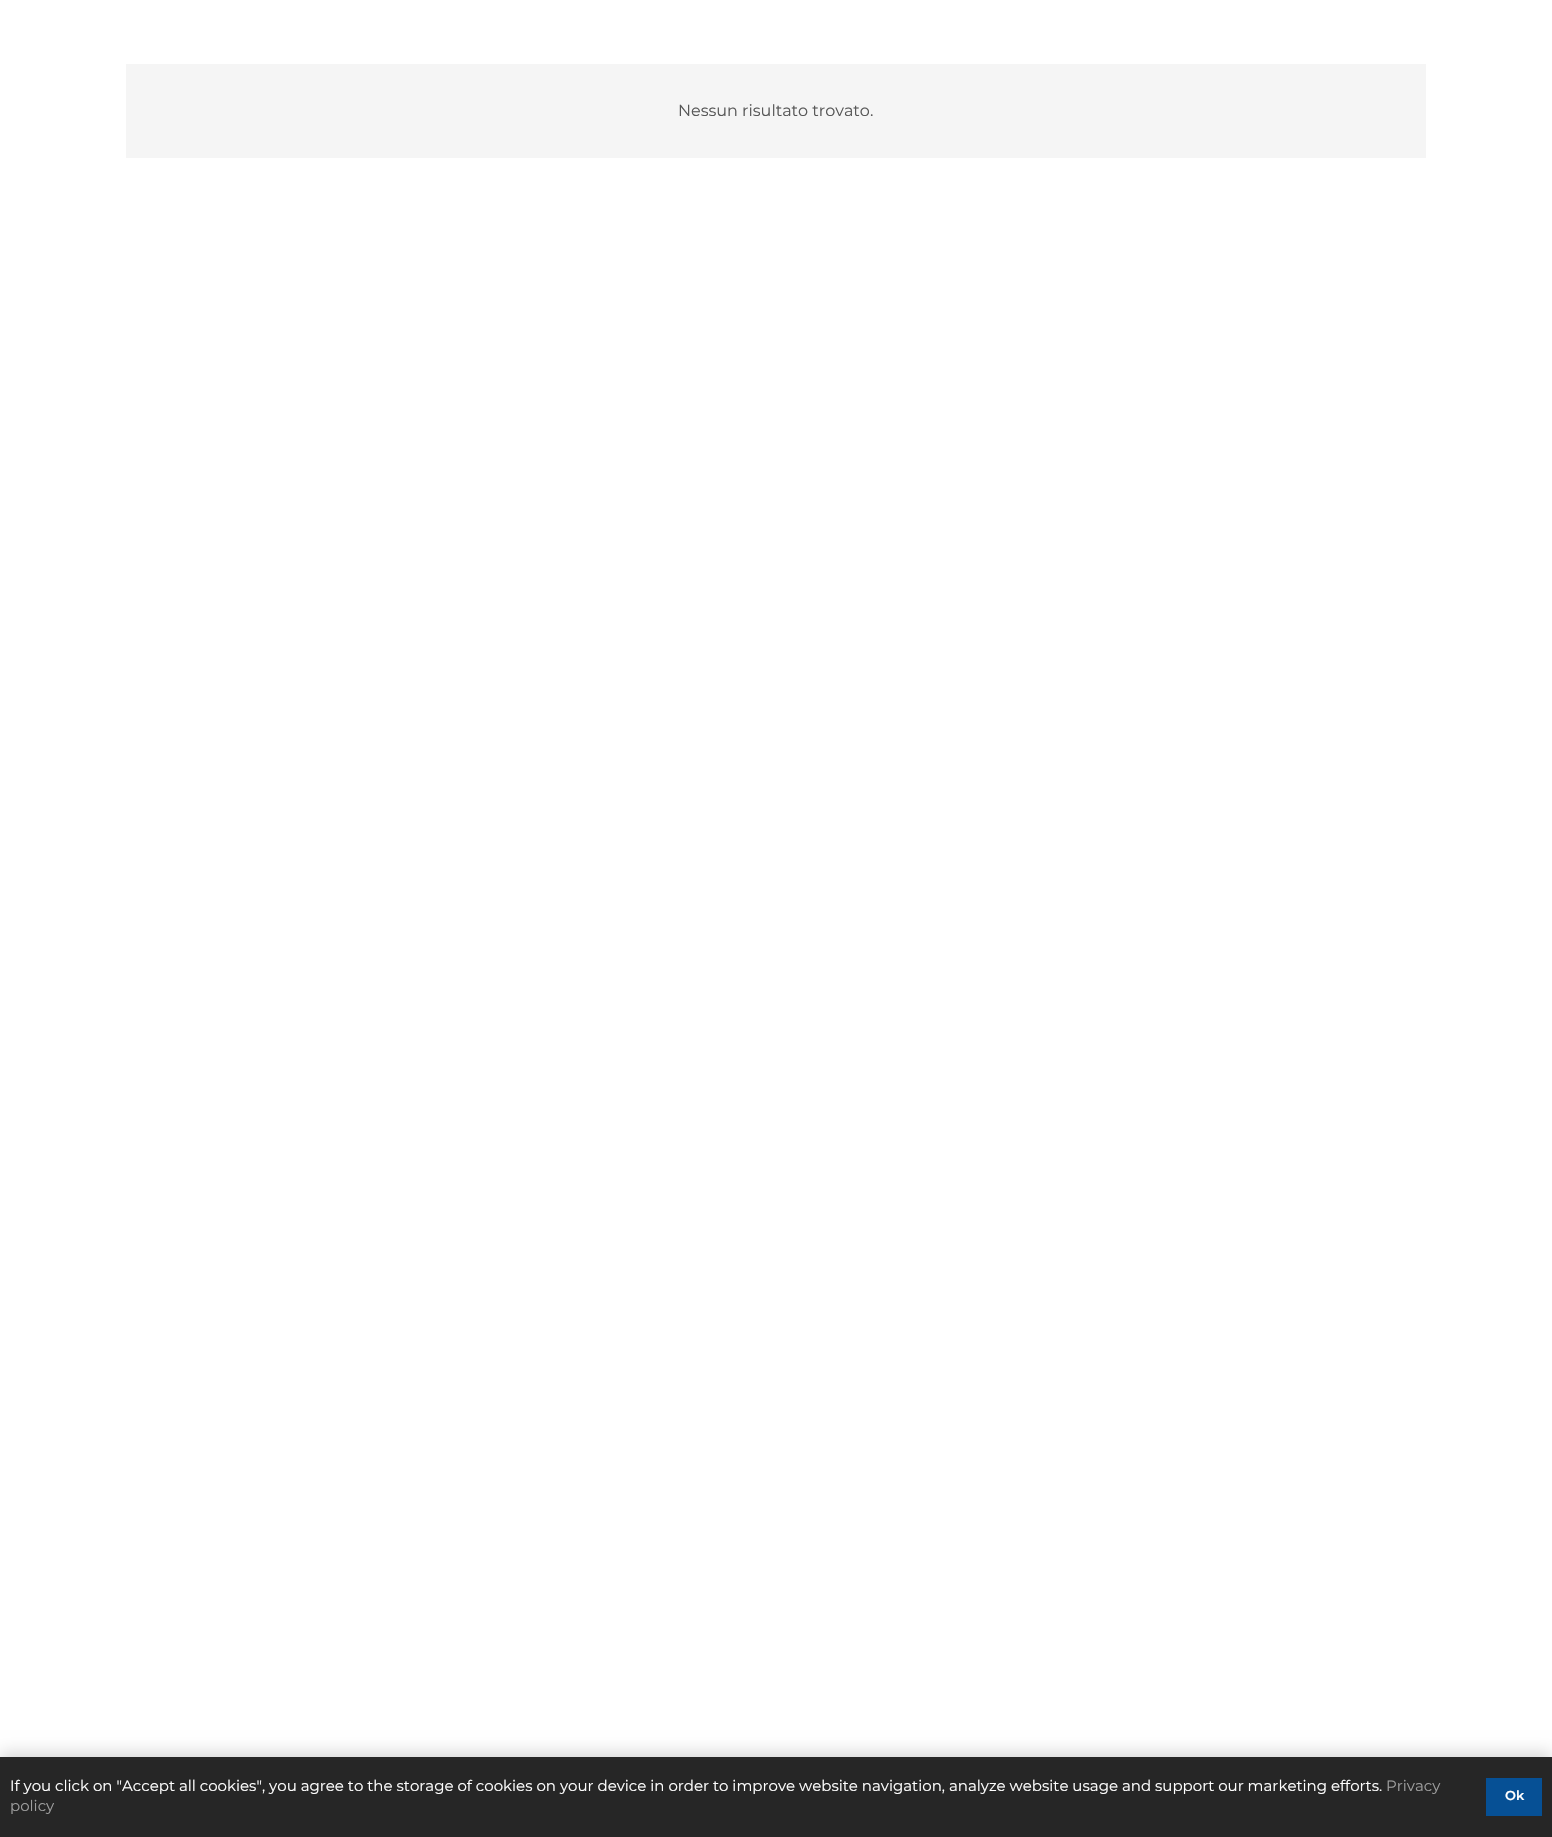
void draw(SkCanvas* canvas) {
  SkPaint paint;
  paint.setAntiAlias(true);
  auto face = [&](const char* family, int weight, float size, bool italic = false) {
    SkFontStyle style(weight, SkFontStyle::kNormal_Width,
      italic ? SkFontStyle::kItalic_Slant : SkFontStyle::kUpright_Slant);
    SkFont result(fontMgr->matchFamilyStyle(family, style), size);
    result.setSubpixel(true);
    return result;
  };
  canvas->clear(0xffffffff);
  paint.setColor(0xfff5f5f5);
  canvas->drawRect(SkRect::MakeXYWH(126, 64, 1300, 94), paint);
  paint.setColor(0x26000000);
  paint.setMaskFilter(SkMaskFilter::MakeBlur(kNormal_SkBlurStyle, 7.5f));
  canvas->drawRect(SkRect::MakeXYWH(0, 1752, 1552, 80), paint);
  paint.setMaskFilter(nullptr);
  paint.setColor(0xff262626);
  canvas->drawRect(SkRect::MakeXYWH(0, 1757, 1552, 80), paint);
  paint.setColor(0xff065095);
  canvas->drawRect(SkRect::MakeXYWH(1486, 1778, 56, 38), paint);
  auto f0 = face("Montserrat", 400, 16);
  paint.setColor(0xff575757);
  canvas->drawString("Nessun risultato trovato.", 678, 116, f0, paint);
  auto f1 = face("Montserrat", 400, 15);
  paint.setColor(0xffffffff);
  canvas->drawString("If you click on \"Accept all cookies\", you agree to the storage of cookies on your device in order to improve website navigation, analyze website usage and support our marketing efforts.", 10, 1791, f1, paint);
  paint.setColor(0xff9e9e9e);
  canvas->drawString("Privacy", 1386, 1791, f1, paint);
  canvas->drawString("policy", 10, 1811, f1, paint);
  auto f2 = face("Montserrat", 600, 13);
  paint.setColor(0xffffffff);
  canvas->drawString("Ok", 1505, 1800, f2, paint);
}
